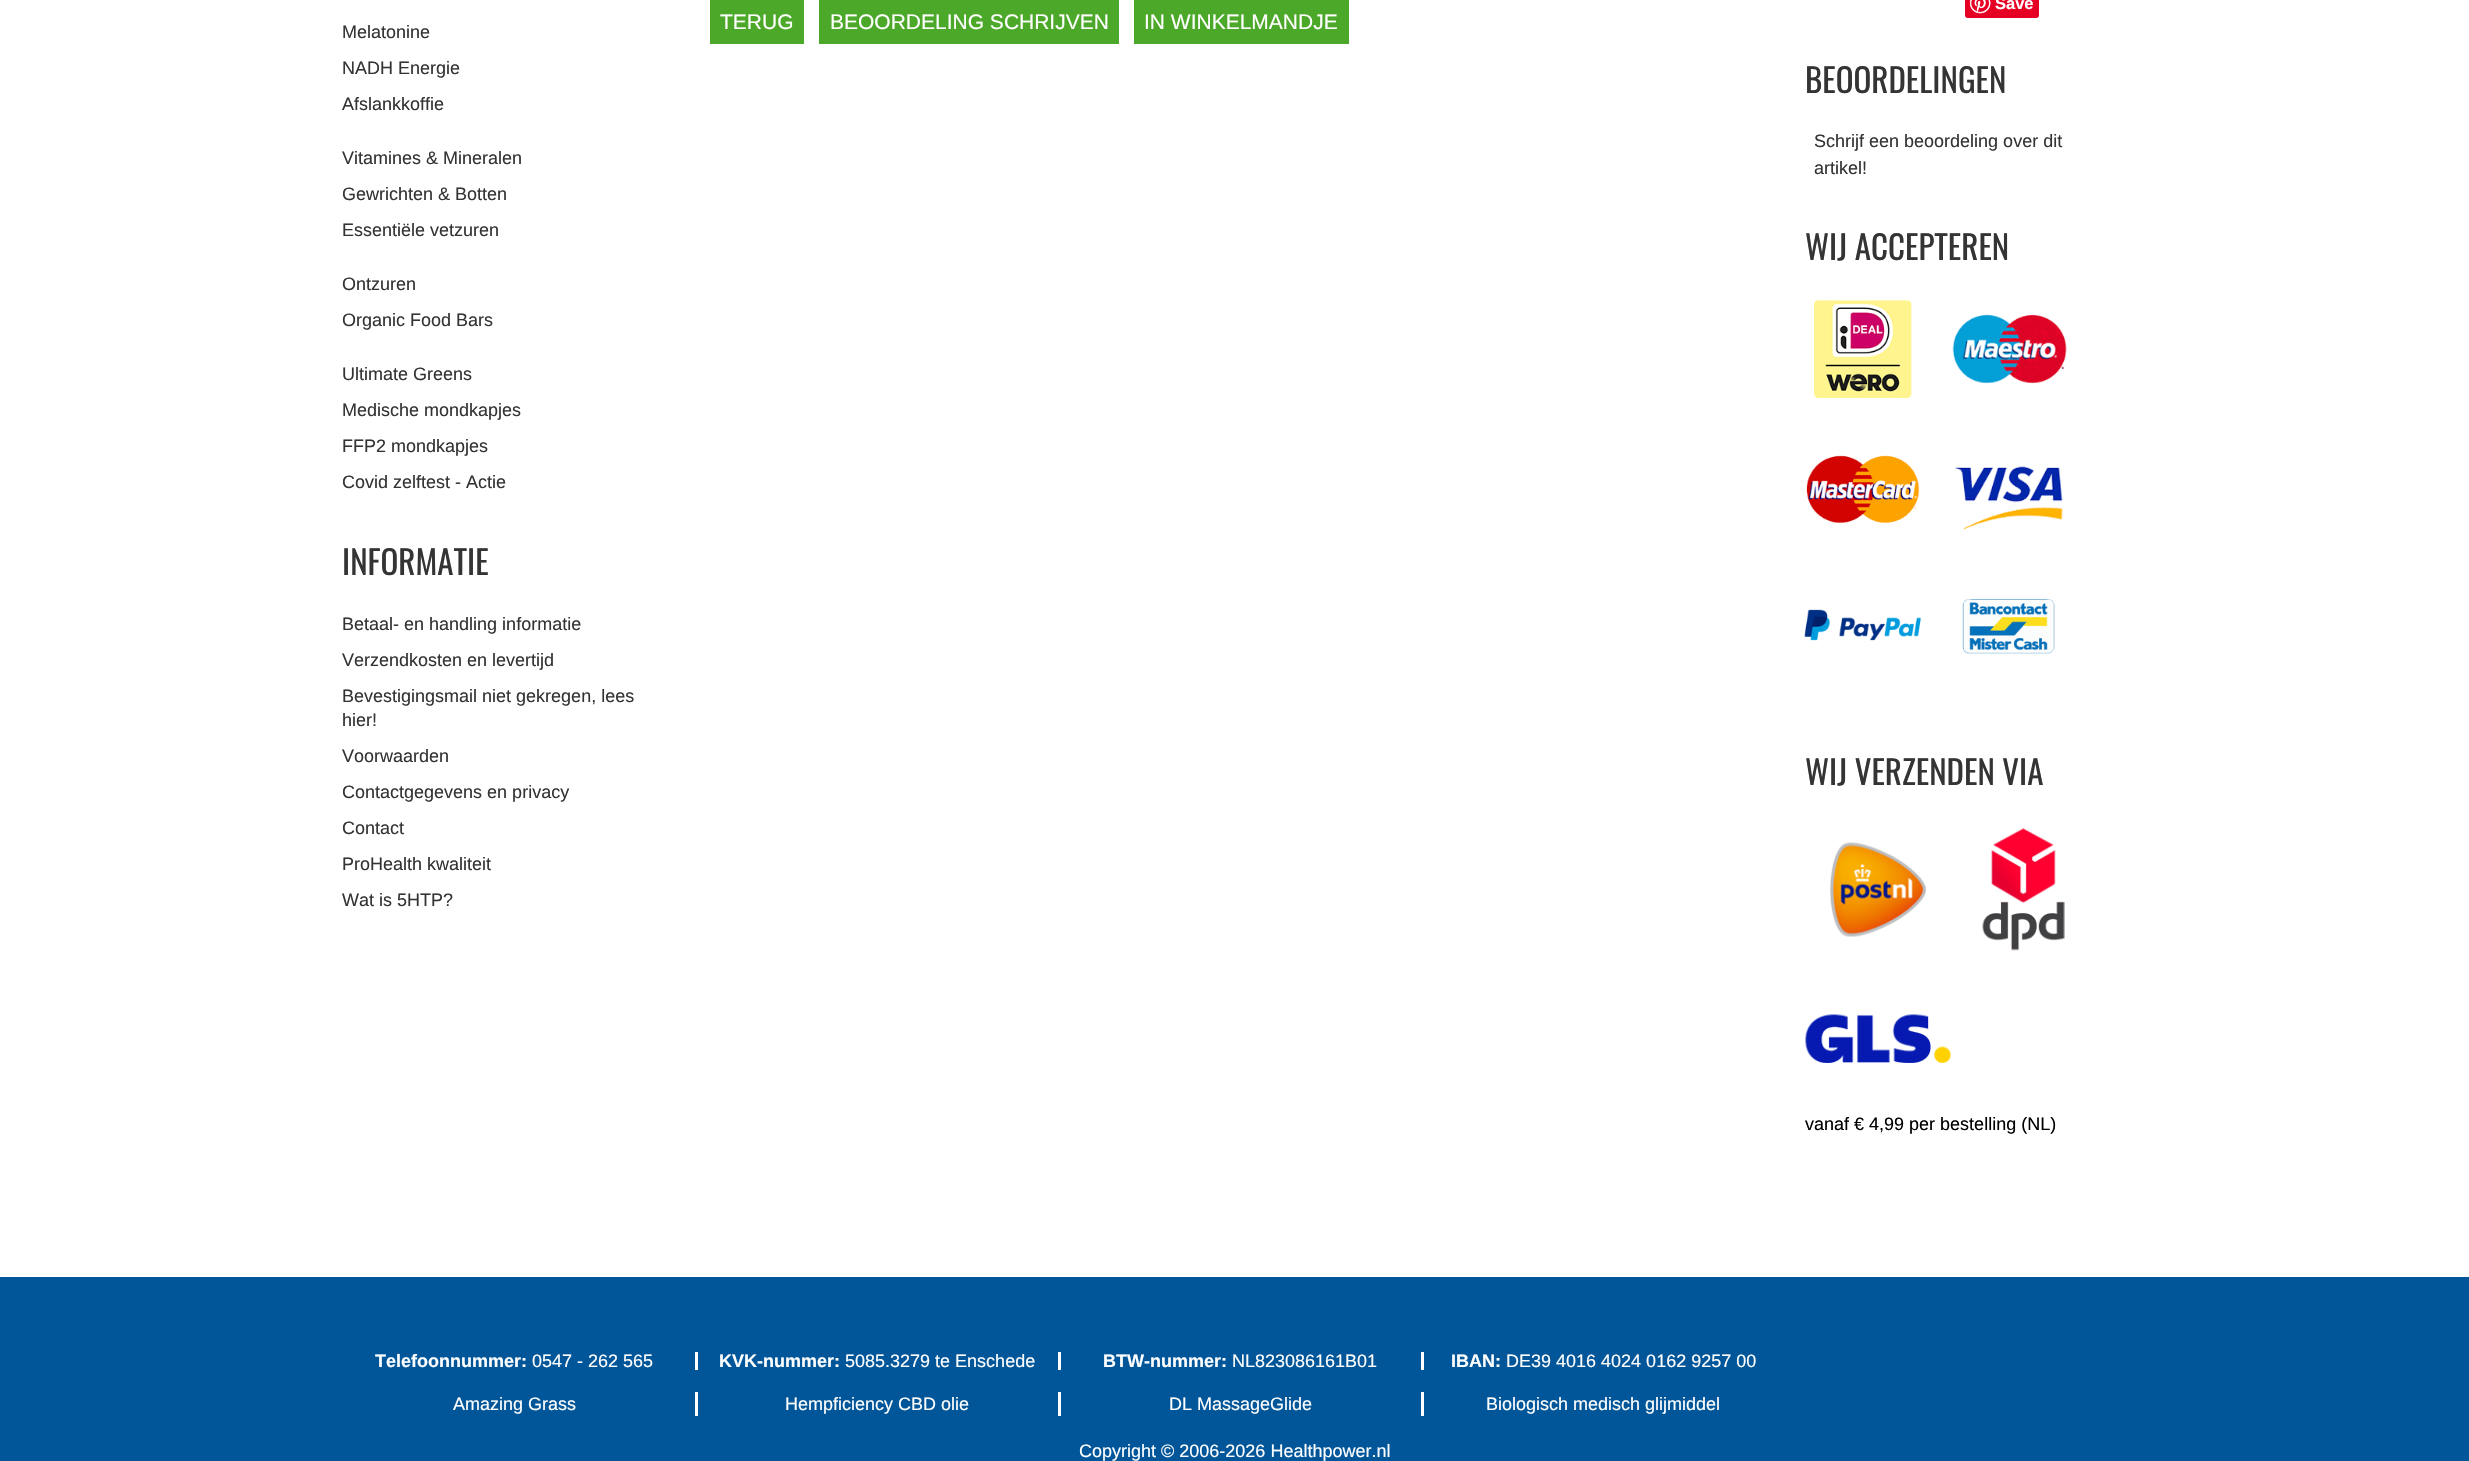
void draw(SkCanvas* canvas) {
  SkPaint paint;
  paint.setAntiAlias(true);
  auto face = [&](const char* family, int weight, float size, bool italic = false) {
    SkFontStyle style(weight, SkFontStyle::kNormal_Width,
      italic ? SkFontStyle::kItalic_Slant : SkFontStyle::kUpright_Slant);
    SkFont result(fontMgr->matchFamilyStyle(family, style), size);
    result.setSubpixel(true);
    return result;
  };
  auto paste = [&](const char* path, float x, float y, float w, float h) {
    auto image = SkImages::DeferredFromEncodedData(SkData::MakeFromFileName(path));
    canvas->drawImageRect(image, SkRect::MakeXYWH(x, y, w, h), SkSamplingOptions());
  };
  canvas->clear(0xffffffff);
  {
    const struct { float x, y, w, h; SkColor color; } items[] = {
      {710, 0, 94, 44, 0xff4ca829},
      {819, 0, 300, 44, 0xff4ca829},
      {1134, 0, 215, 44, 0xff4ca829},
    };
    for (auto [x, y, w, h, color] : items) {
      paint.setColor(color);
      canvas->drawRect(SkRect::MakeXYWH(x, y, w, h), paint);
    }
  }
  paint.setColor(0xffe60023);
  canvas->drawRoundRect(SkRect::MakeXYWH(1965, -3, 74, 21), 3, 3, paint);
  paste("img/1.png", 1970, 0, 21, 14);
  paste("img/2.png", 1814, 300, 98, 98);
  paste("img/3.png", 1952, 314, 115, 70);
  paste("img/4.png", 1806, 455, 114, 69);
  paste("img/5.png", 1955, 466, 108, 64);
  paste("img/6.png", 1804, 609, 117, 32);
  paste("img/7.png", 1962, 599, 93, 55);
  paste("img/8.png", 1830, 842, 96, 95);
  paste("img/9.png", 1982, 827, 83, 124);
  paste("img/10.png", 1805, 1014, 146, 49);
  {
    const struct { float x, y, w, h; SkColor color; } items[] = {
      {0, 1277, 2469, 184, 0xff015699},
      {695, 1352, 3, 18, 0xffffffff},
      {1058, 1352, 3, 18, 0xffffffff},
      {1421, 1352, 3, 18, 0xffffffff},
      {695, 1392, 3, 24, 0xffffffff},
      {1058, 1392, 3, 24, 0xffffffff},
      {1421, 1392, 3, 24, 0xffffffff},
    };
    for (auto [x, y, w, h, color] : items) {
      paint.setColor(color);
      canvas->drawRect(SkRect::MakeXYWH(x, y, w, h), paint);
    }
  }
  auto f0 = face("Liberation Sans", 400, 21);
  {
    const struct { const char* s; float x, y; } items[] = {
      {"TERUG", 720, 29},
      {"BEOORDELING SCHRIJVEN", 830, 29},
      {"IN WINKELMANDJE", 1144, 29},
    };
    for (auto [s, x, y] : items) {
      canvas->drawString(s, x, y, f0, paint);
    }
  }
  auto f1 = face("Liberation Sans", 700, 16.5f);
  canvas->drawString("Save", 1995, 9, f1, paint);
  auto f2 = face("Oswald", 400, 33);
  paint.setColor(0xff343434);
  canvas->drawString("BEOORDELINGEN", 1805, 93, f2, paint);
  auto f3 = face("Liberation Sans", 400, 18);
  canvas->drawString("Schrijf een beoordeling over dit", 1814, 147, f3, paint);
  canvas->drawString("artikel!", 1814, 174, f3, paint);
  canvas->drawString("WIJ ACCEPTEREN", 1805, 260, f2, paint);
  canvas->drawString("WIJ VERZENDEN VIA", 1805, 785, f2, paint);
  paint.setColor(0xff000000);
  canvas->drawString("vanaf € 4,99 per bestelling (NL)", 1805, 1130, f3, paint);
  paint.setColor(0xff343434);
  {
    const struct { const char* s; float x, y; } items[] = {
      {"Melatonine", 342, 38},
      {"NADH Energie", 342, 74},
      {"Afslankkoffie", 342, 110},
      {"Vitamines & Mineralen", 342, 164},
      {"Gewrichten & Botten", 342, 200},
      {"Essentiële vetzuren", 342, 236},
      {"Ontzuren", 342, 290},
      {"Organic Food Bars", 342, 326},
      {"Ultimate Greens", 342, 380},
      {"Medische mondkapjes", 342, 416},
      {"FFP2 mondkapjes", 342, 452},
      {"Covid zelftest - Actie", 342, 488},
    };
    for (auto [s, x, y] : items) {
      canvas->drawString(s, x, y, f3, paint);
    }
  }
  canvas->drawString("INFORMATIE", 342, 575, f2, paint);
  {
    const struct { const char* s; float x, y; } items[] = {
      {"Betaal- en handling informatie", 342, 630},
      {"Verzendkosten en levertijd", 342, 666},
      {"Bevestigingsmail niet gekregen, lees", 342, 702},
      {"hier!", 342, 726},
      {"Voorwaarden", 342, 762},
      {"Contactgegevens en privacy", 342, 798},
      {"Contact", 342, 834},
      {"ProHealth kwaliteit", 342, 870},
      {"Wat is 5HTP?", 342, 906},
    };
    for (auto [s, x, y] : items) {
      canvas->drawString(s, x, y, f3, paint);
    }
  }
  auto f4 = face("Liberation Sans", 700, 18);
  paint.setColor(0xffffffff);
  canvas->drawString("Telefoonnummer:", 375, 1367, f4, paint);
  canvas->drawString("0547 - 262 565", 532, 1367, f3, paint);
  canvas->drawString("KVK-nummer:", 719, 1367, f4, paint);
  canvas->drawString("5085.3279 te Enschede", 845, 1367, f3, paint);
  canvas->drawString("BTW-nummer:", 1103, 1367, f4, paint);
  canvas->drawString("NL823086161B01", 1232, 1367, f3, paint);
  canvas->drawString("IBAN:", 1451, 1367, f4, paint);
  {
    const struct { const char* s; float x, y; } items[] = {
      {"DE39 4016 4024 0162 9257 00", 1506, 1367},
      {"Amazing Grass", 453, 1410},
      {"Hempficiency CBD olie", 785, 1410},
      {"DL MassageGlide", 1169, 1410},
      {"Biologisch medisch glijmiddel", 1486, 1410},
      {"Copyright © 2006-2026 Healthpower.nl", 1079, 1457},
    };
    for (auto [s, x, y] : items) {
      canvas->drawString(s, x, y, f3, paint);
    }
  }
}
